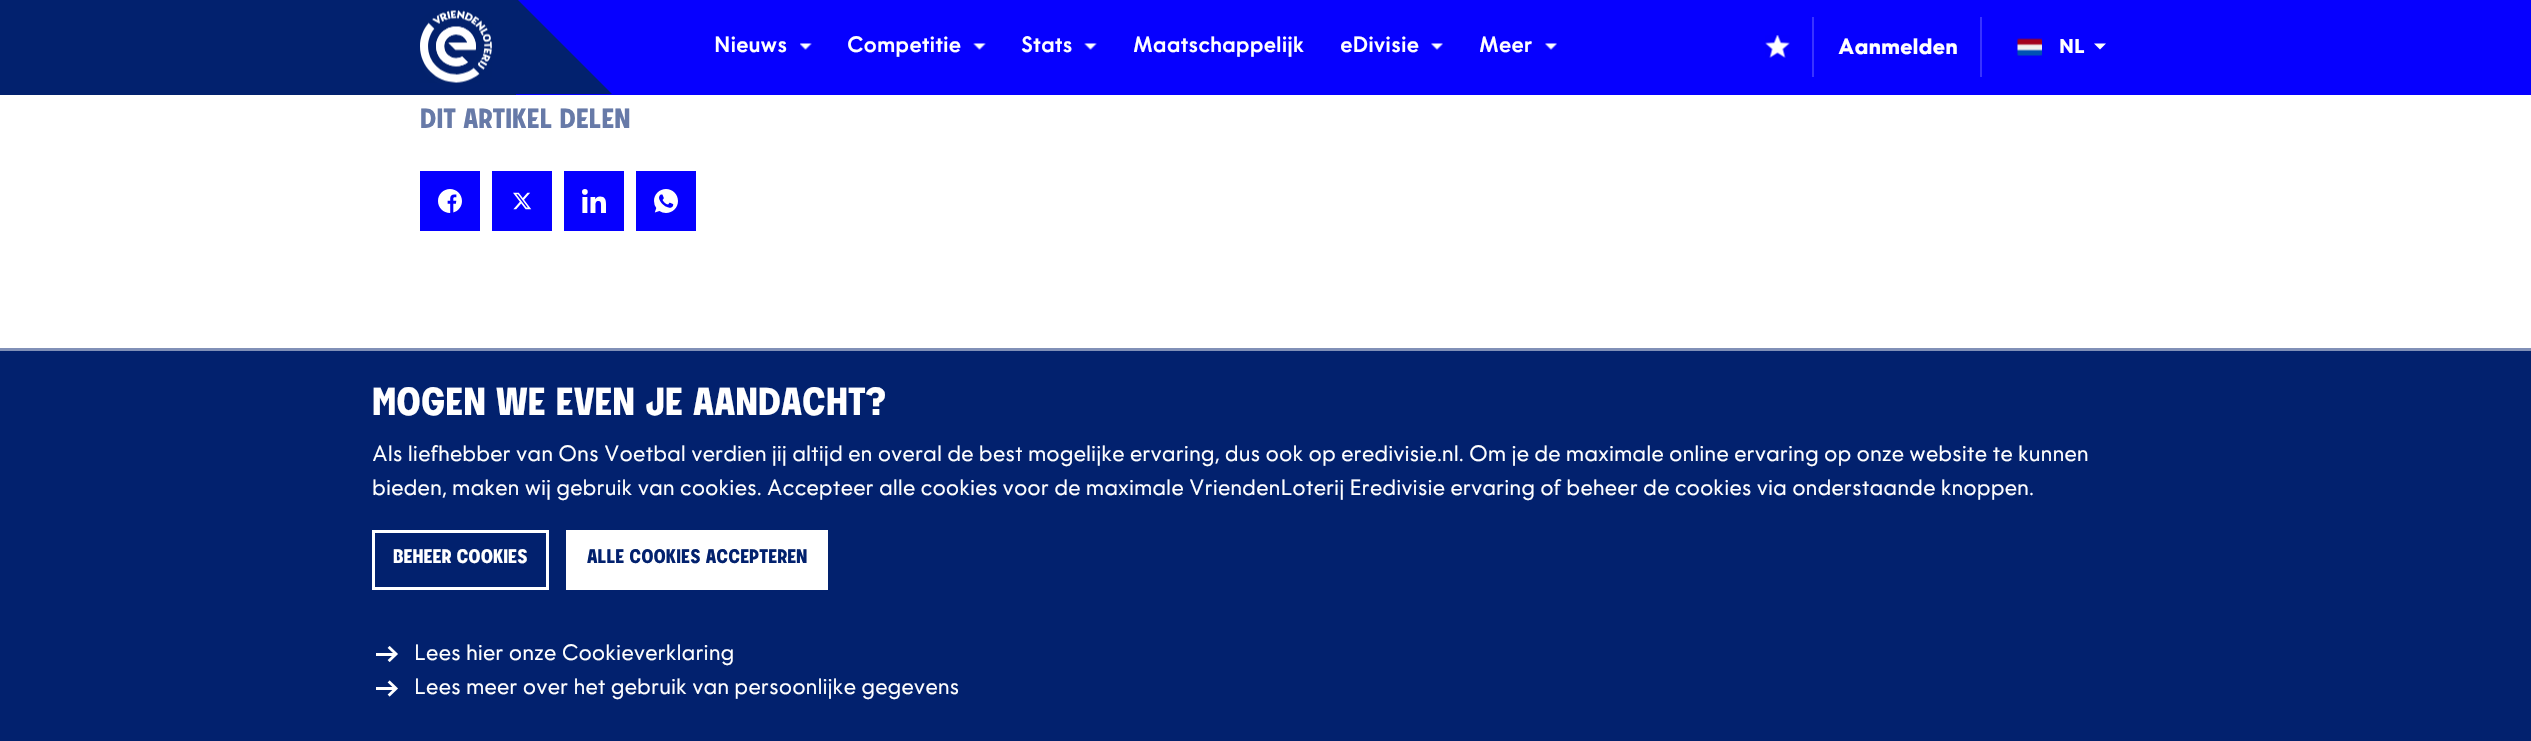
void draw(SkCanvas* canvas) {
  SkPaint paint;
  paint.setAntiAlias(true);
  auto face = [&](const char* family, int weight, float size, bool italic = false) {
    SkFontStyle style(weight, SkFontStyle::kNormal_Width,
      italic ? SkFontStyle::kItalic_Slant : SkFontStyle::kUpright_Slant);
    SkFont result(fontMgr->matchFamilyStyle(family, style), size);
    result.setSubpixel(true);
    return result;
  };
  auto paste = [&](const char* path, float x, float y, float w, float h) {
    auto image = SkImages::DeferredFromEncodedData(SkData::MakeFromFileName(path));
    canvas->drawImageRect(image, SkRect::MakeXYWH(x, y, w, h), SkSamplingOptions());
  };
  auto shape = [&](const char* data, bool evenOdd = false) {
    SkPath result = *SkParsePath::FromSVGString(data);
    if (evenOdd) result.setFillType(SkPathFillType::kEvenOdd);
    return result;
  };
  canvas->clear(0xffffffff);
  paint.setColor(0xff0600ff);
  canvas->drawRect(SkRect::MakeXYWH(516, 0, 2015, 95), paint);
  paint.setColor(0xff02216e);
  canvas->drawRect(SkRect::MakeXYWH(0, 0, 516, 95), paint);
  canvas->drawPath(shape("M516 94H612L516-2Z"), paint);
  paste("img/1.png", 420, 10, 72, 73);
  paste("img/2.png", 800, 43, 12, 7);
  paste("img/3.png", 973, 43, 13, 7);
  paste("img/3.png", 1084, 43, 13, 7);
  paste("img/4.png", 1431, 43, 12, 7);
  paste("img/4.png", 1545, 43, 12, 7);
  paste("img/5.png", 1765, 35, 25, 23);
  paint.setColor(0xff3833ff);
  canvas->drawRect(SkRect::MakeXYWH(1812, 17, 2, 60), paint);
  canvas->drawRect(SkRect::MakeXYWH(1980, 17, 2, 60), paint);
  paste("img/6.png", 2017, 38, 25, 19);
  paint.setColor(0xffffffff);
  canvas->drawPath(shape("M2094 43.5L2100 49.5L2106 43.5Z"), paint);
  paint.setColor(0xff0600ff);
  canvas->drawRect(SkRect::MakeXYWH(420, 171, 60, 60), paint);
  paste("img/7.png", 438, 189, 24, 24);
  canvas->drawRect(SkRect::MakeXYWH(492, 171, 60, 60), paint);
  paste("img/8.png", 513, 192, 19, 18);
  canvas->drawRect(SkRect::MakeXYWH(564, 171, 60, 60), paint);
  paste("img/9.png", 582, 189, 24, 24);
  canvas->drawRect(SkRect::MakeXYWH(636, 171, 60, 60), paint);
  paste("img/10.png", 654, 189, 24, 24);
  paint.setColor(0xff02216e);
  canvas->drawRect(SkRect::MakeXYWH(0, 351, 2531, 390), paint);
  paint.setColor(0xff8190b7);
  canvas->drawRect(SkRect::MakeXYWH(0, 348, 2531, 3), paint);
  paint.setStroke(true);
  paint.setStrokeWidth(3);
  paint.setColor(0xffffffff);
  canvas->drawRect(SkRect::MakeXYWH(373.5f, 531.5f, 174, 57), paint);
  paint.setStroke(false);
  canvas->drawRect(SkRect::MakeXYWH(566, 530, 262, 60), paint);
  paste("img/11.png", 376, 646, 22, 16);
  paste("img/12.png", 376, 680, 22, 17);
  auto f0 = face("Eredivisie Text", 500, 21);
  {
    const struct { const char* s; float x, y; } items[] = {
      {"Nieuws", 714, 52},
      {"Competitie", 847, 52},
      {"Stats", 1021, 52},
      {"Maatschappelijk", 1133, 52},
      {"eDivisie", 1340, 52},
      {"Meer", 1479, 52},
    };
    for (auto [s, x, y] : items) {
      canvas->drawString(s, x, y, f0, paint);
    }
  }
  auto f1 = face("Eredivisie Text", 700, 21);
  canvas->drawString("Aanmelden", 1838, 54, f1, paint);
  auto f2 = face("Eredivisie Text", 700, 19);
  canvas->drawString("NL", 2059, 53, f2, paint);
  auto f3 = face("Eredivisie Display", 700, 30);
  paint.setColor(0xff677aa8);
  canvas->drawString("DIT ARTIKEL DELEN", 420, 128, f3, paint);
  auto f4 = face("Eredivisie Display", 700, 42);
  paint.setColor(0xffffffff);
  canvas->drawString("MOGEN WE EVEN JE AANDACHT?", 372, 415, f4, paint);
  auto f5 = face("Eredivisie Text", 400, 21);
  canvas->drawString("Als liefhebber van Ons Voetbal verdien jij altijd en overal de best mogelijke ervaring, dus ook op eredivisie.nl. Om je de maximale online ervaring op onze website te kunnen", 372, 461, f5, paint);
  canvas->drawString("bieden, maken wij gebruik van cookies. Accepteer alle cookies voor de maximale VriendenLoterij Eredivisie ervaring of beheer de cookies via onderstaande knoppen.", 372, 495, f5, paint);
  auto f6 = face("Eredivisie Display", 700, 21);
  canvas->drawString("BEHEER COOKIES", 393, 563, f6, paint);
  paint.setColor(0xff02216e);
  canvas->drawString("ALLE COOKIES ACCEPTEREN", 587, 563, f6, paint);
  paint.setColor(0xffffffff);
  canvas->drawString("Lees hier onze Cookieverklaring", 414, 660, f5, paint);
  canvas->drawString("Lees meer over het gebruik van persoonlijke gegevens", 414, 694, f5, paint);
}
